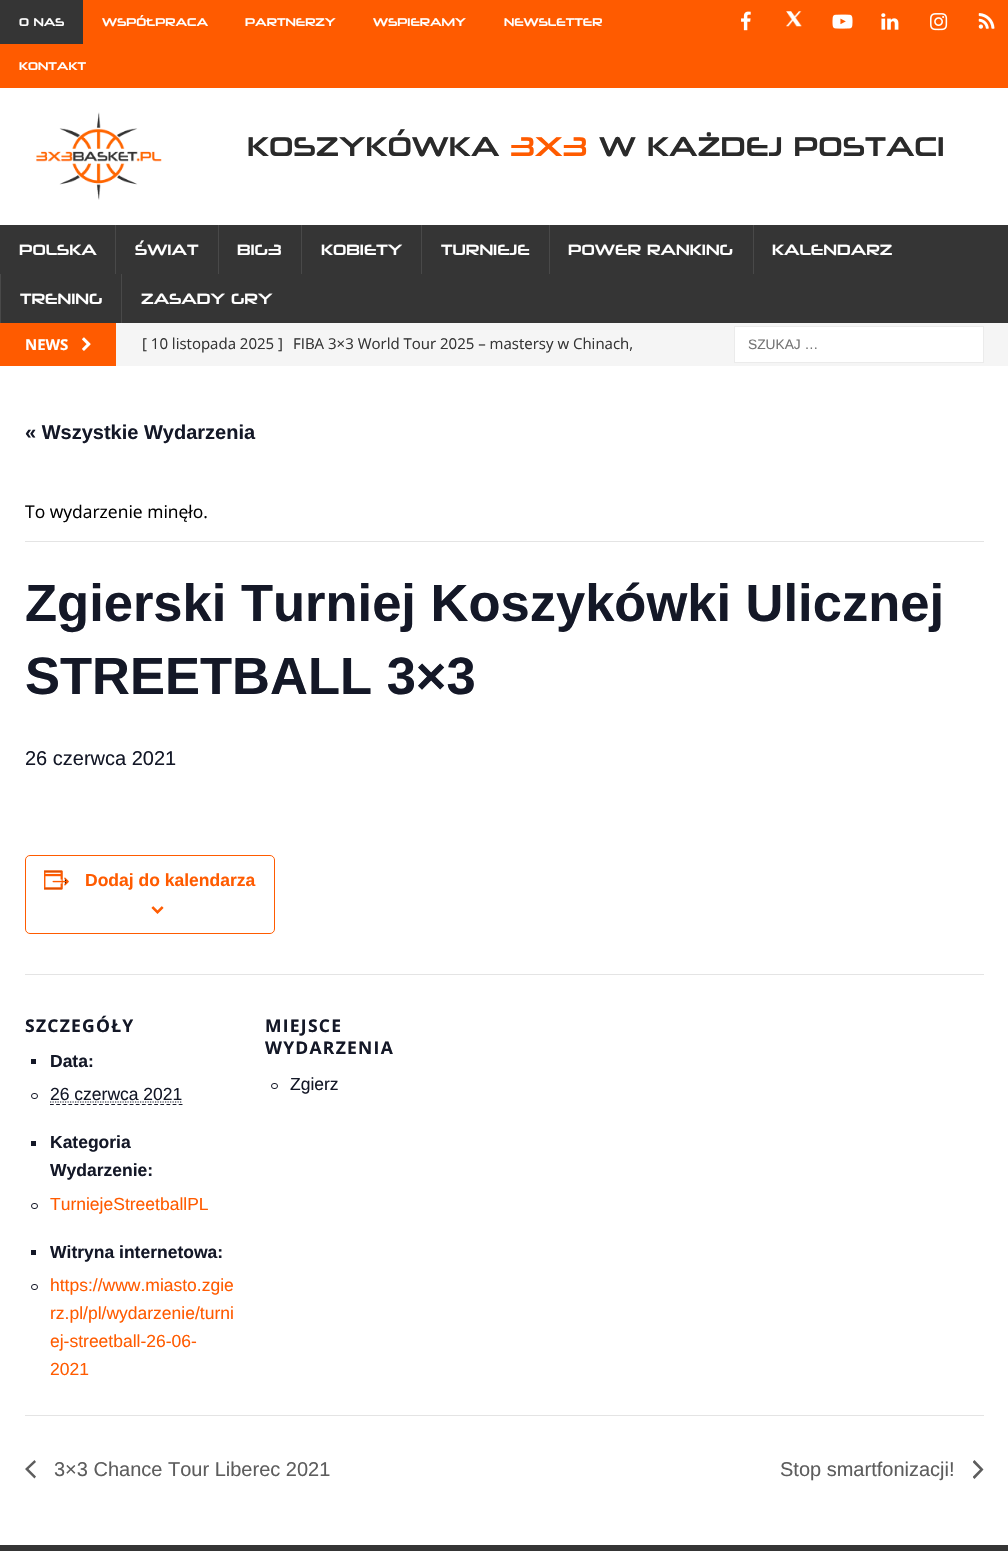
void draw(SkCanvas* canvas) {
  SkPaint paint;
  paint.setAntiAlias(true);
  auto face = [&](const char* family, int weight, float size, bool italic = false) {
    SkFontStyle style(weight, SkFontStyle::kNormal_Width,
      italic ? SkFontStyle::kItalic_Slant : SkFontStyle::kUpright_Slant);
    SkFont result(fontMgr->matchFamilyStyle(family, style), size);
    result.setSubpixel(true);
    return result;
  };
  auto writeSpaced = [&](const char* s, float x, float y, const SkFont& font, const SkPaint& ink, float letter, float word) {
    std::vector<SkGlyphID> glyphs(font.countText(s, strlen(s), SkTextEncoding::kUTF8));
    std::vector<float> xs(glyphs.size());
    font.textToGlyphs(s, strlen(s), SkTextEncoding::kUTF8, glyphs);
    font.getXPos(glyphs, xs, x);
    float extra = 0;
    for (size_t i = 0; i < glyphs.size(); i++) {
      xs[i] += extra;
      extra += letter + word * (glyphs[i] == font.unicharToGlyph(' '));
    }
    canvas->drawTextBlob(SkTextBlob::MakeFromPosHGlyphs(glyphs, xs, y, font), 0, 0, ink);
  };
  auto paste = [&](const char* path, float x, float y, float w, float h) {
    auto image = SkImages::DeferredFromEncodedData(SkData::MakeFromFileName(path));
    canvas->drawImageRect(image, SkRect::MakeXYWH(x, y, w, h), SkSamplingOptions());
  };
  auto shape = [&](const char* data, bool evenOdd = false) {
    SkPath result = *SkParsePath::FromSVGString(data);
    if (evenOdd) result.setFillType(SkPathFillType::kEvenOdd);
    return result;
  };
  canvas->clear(0xffff5b00);
  paint.setColor(0xff353535);
  canvas->drawRect(SkRect::MakeXYWH(0, 0, 83, 44), paint);
  paste("img/1.png", 741, 11, 10, 20);
  paste("img/2.png", 786, 11, 16, 16);
  paste("img/3.png", 832, 14, 21, 15);
  paste("img/4.png", 881, 13, 18, 17);
  paste("img/5.png", 930, 13, 18, 18);
  paste("img/6.png", 978, 13, 17, 16);
  paint.setColor(0xffffffff);
  canvas->drawRect(SkRect::MakeXYWH(0, 88, 1008, 137), paint);
  paste("img/7.png", 36, 112, 126, 88);
  {
    const struct { float x, y, w, h; SkColor color; } items[] = {
      {0, 225, 1008, 98, 0xff353535},
      {115, 225, 1, 49, 0xff494949},
      {218, 225, 1, 49, 0xff494949},
      {301, 225, 1, 49, 0xff494949},
      {421, 225, 1, 49, 0xff494949},
      {549, 225, 1, 49, 0xff494949},
      {753, 225, 1, 49, 0xff494949},
      {0, 274, 1, 49, 0xff494949},
      {121, 274, 1, 49, 0xff494949},
      {116, 323, 892, 43, 0xfff5f5f5},
    };
    for (auto [x, y, w, h, color] : items) {
      paint.setColor(color);
      canvas->drawRect(SkRect::MakeXYWH(x, y, w, h), paint);
    }
  }
  paste("img/8.png", 82, 337, 9, 14);
  paint.setColor(0xffffffff);
  canvas->drawRect(SkRect::MakeXYWH(734.5f, 326.5f, 249, 36), paint);
  paint.setStroke(true);
  paint.setStrokeWidth(1);
  paint.setColor(0xffebebeb);
  canvas->drawRect(SkRect::MakeXYWH(734.5f, 326.5f, 249, 36), paint);
  paint.setStroke(false);
  paint.setColor(0xffffffff);
  canvas->drawRect(SkRect::MakeXYWH(0, 366, 1008, 1179), paint);
  paint.setColor(0xffe4e4e4);
  canvas->drawRect(SkRect::MakeXYWH(25, 541, 959, 1), paint);
  paint.setStroke(true);
  paint.setColor(0xffff5b00);
  canvas->drawRoundRect(SkRect::MakeXYWH(25.5f, 855.5f, 249, 78), 4.5f, 4.5f, paint);
  paste("img/9.png", 44, 870, 25, 20);
  paste("img/10.png", 151, 906, 13, 8);
  paint.setStroke(false);
  paint.setColor(0xffe4e4e4);
  canvas->drawRect(SkRect::MakeXYWH(25, 974, 959, 1), paint);
  paint.setColor(0xff141827);
  canvas->drawRect(SkRect::MakeXYWH(31, 1059, 5, 5), paint);
  paint.setStroke(true);
  canvas->drawRoundRect(SkRect::MakeXYWH(31.5f, 1093.5f, 6, 5), 2.5f, 2.5f, paint);
  paint.setStrokeWidth(1.2f);
  paint.setPathEffect(SkDashPathEffect::Make({{3.75f, 2.38f}}, 0));
  canvas->drawPath(shape("M50 1104.5H182.5"), paint);
  paint.setPathEffect(nullptr);
  paint.setPathEffect(SkDashPathEffect::Make({{1.25f, 1.25f}}, 0));
  canvas->drawPath(shape("M50 1102H182.5"), paint);
  paint.setPathEffect(nullptr);
  paint.setStroke(false);
  canvas->drawRect(SkRect::MakeXYWH(31, 1141, 5, 5), paint);
  paint.setStroke(true);
  paint.setStrokeWidth(1);
  canvas->drawRoundRect(SkRect::MakeXYWH(31.5f, 1203.5f, 6, 5), 2.5f, 2.5f, paint);
  paint.setStroke(false);
  canvas->drawRect(SkRect::MakeXYWH(31, 1250, 5, 5), paint);
  paint.setStroke(true);
  canvas->drawRoundRect(SkRect::MakeXYWH(31.5f, 1284.5f, 6, 5), 2.5f, 2.5f, paint);
  canvas->drawRoundRect(SkRect::MakeXYWH(271.5f, 1083.5f, 6, 5), 2.5f, 2.5f, paint);
  paint.setStroke(false);
  paint.setColor(0xffe4e4e4);
  canvas->drawRect(SkRect::MakeXYWH(25, 1415, 959, 1), paint);
  paint.setColor(0xff5d5d5d);
  canvas->drawPath(shape("M36 1476.5L34.5 1478.5L25 1469L34.5 1460L36 1462L28.5 1469Z"), paint);
  canvas->save();
  canvas->clipRect(SkRect::MakeXYWH(973, 1460, 11, 19));
  canvas->drawPath(shape("M972.5 1462L974.5 1460L983.5 1469.5L974.5 1479L972.5 1477L980 1469.5Z"), paint);
  canvas->restore();
  paint.setColor(0xff353535);
  canvas->drawRect(SkRect::MakeXYWH(0, 1545, 1008, 6), paint);
  auto f0 = face("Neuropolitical", 400, 11.25f);
  paint.setColor(0xffffffff);
  {
    const struct { const char* s; float x, y; } items[] = {
      {"O NAS", 19, 26},
      {"WSPÓŁPRACA", 102, 26},
      {"PARTNERZY", 245, 26},
      {"WSPIERAMY", 373, 26},
      {"NEWSLETTER", 504, 26},
      {"KONTAKT", 19, 70},
    };
    for (auto [s, x, y] : items) {
      canvas->drawString(s, x, y, f0, paint);
    }
  }
  auto f1 = face("Neuropolitical", 400, 27.5f);
  paint.setColor(0xff2a2a2a);
  canvas->drawString("KOSZYKÓWKA", 247, 156, f1, paint);
  paint.setColor(0xffff5b00);
  canvas->drawString("3X3", 510, 156, f1, paint);
  paint.setColor(0xff2a2a2a);
  canvas->drawString("W KAŻDEJ POSTACI", 599, 156, f1, paint);
  auto f2 = face("Neuropolitical", 400, 15);
  paint.setColor(0xffffffff);
  {
    const struct { const char* s; float x, y; } items[] = {
      {"POLSKA", 19, 255},
      {"ŚWIAT", 135, 255},
      {"BIG3", 237, 255},
      {"KOBIETY", 321, 255},
      {"TURNIEJE", 441, 255},
      {"POWER RANKING", 568, 255},
      {"KALENDARZ", 772, 255},
      {"TRENING", 20, 304},
      {"ZASADY GRY", 141, 304},
    };
    for (auto [s, x, y] : items) {
      canvas->drawString(s, x, y, f2, paint);
    }
  }
  auto f3 = face("Open Sans", 700, 15);
  canvas->drawString("NEWS", 25, 350, f3, paint);
  auto f4 = face("Open Sans", 400, 15);
  paint.setColor(0xff353535);
  canvas->drawString("[ 10 listopada 2025 ]", 142, 349, f4, paint);
  canvas->drawString("FIBA 3×3 World Tour 2025 – mastersy w Chinach,", 293, 349, f4, paint);
  auto f5 = face("Liberation Sans", 400, 13.75f);
  paint.setColor(0xff757575);
  canvas->drawString("SZUKAJ …", 748, 349, f5, paint);
  auto f6 = face("Liberation Sans", 700, 20);
  paint.setColor(0xff141827);
  canvas->drawString("« Wszystkie Wydarzenia", 25, 439, f6, paint);
  auto f7 = face("Open Sans", 400, 17.5f);
  paint.setColor(0xff000000);
  canvas->drawString("To wydarzenie minęło.", 25, 518, f7, paint);
  auto f8 = face("Liberation Sans", 700, 52.5f);
  paint.setColor(0xff141827);
  canvas->drawString("Zgierski Turniej Koszykówki Ulicznej", 25, 621, f8, paint);
  canvas->drawString("STREETBALL 3×3", 25, 694, f8, paint);
  auto f9 = face("Liberation Sans", 400, 20);
  canvas->drawString("26 czerwca 2021", 25, 765, f9, paint);
  auto f10 = face("Liberation Sans", 700, 17.5f);
  paint.setColor(0xffff5b00);
  canvas->drawString("Dodaj do kalendarza", 85, 886, f10, paint);
  auto f11 = face("Open Sans", 700, 17.5f);
  paint.setColor(0xff141827);
  writeSpaced("SZCZEGÓŁY", 25, 1032, f11, paint, 1.25f, 0);
  canvas->drawString("Data:", 50, 1067, f10, paint);
  auto f12 = face("Liberation Sans", 400, 17.5f);
  canvas->drawString("26 czerwca 2021", 50, 1100, f12, paint);
  canvas->drawString("Kategoria", 50, 1148, f10, paint);
  canvas->drawString("Wydarzenie:", 50, 1176, f10, paint);
  paint.setColor(0xffff5b00);
  canvas->drawString("TurniejeStreetballPL", 50, 1210, f12, paint);
  paint.setColor(0xff141827);
  canvas->drawString("Witryna internetowa:", 50, 1258, f10, paint);
  paint.setColor(0xffff5b00);
  {
    const struct { const char* s; float x, y; } items[] = {
      {"https://www.miasto.zgie", 50, 1291},
      {"rz.pl/pl/wydarzenie/turni", 50, 1319},
      {"ej-streetball-26-06-", 50, 1347},
      {"2021", 50, 1375},
    };
    for (auto [s, x, y] : items) {
      canvas->drawString(s, x, y, f12, paint);
    }
  }
  paint.setColor(0xff141827);
  writeSpaced("MIEJSCE", 265, 1032, f11, paint, 1.25f, 0);
  writeSpaced("WYDARZENIA", 265, 1054, f11, paint, 1.25f, 0);
  canvas->drawString("Zgierz", 290, 1090, f12, paint);
  paint.setColor(0xff5d5d5d);
  canvas->drawString("3×3 Chance Tour Liberec 2021", 54, 1476, f9, paint);
  canvas->drawString("Stop smartfonizacji!", 780, 1476, f9, paint);
}
